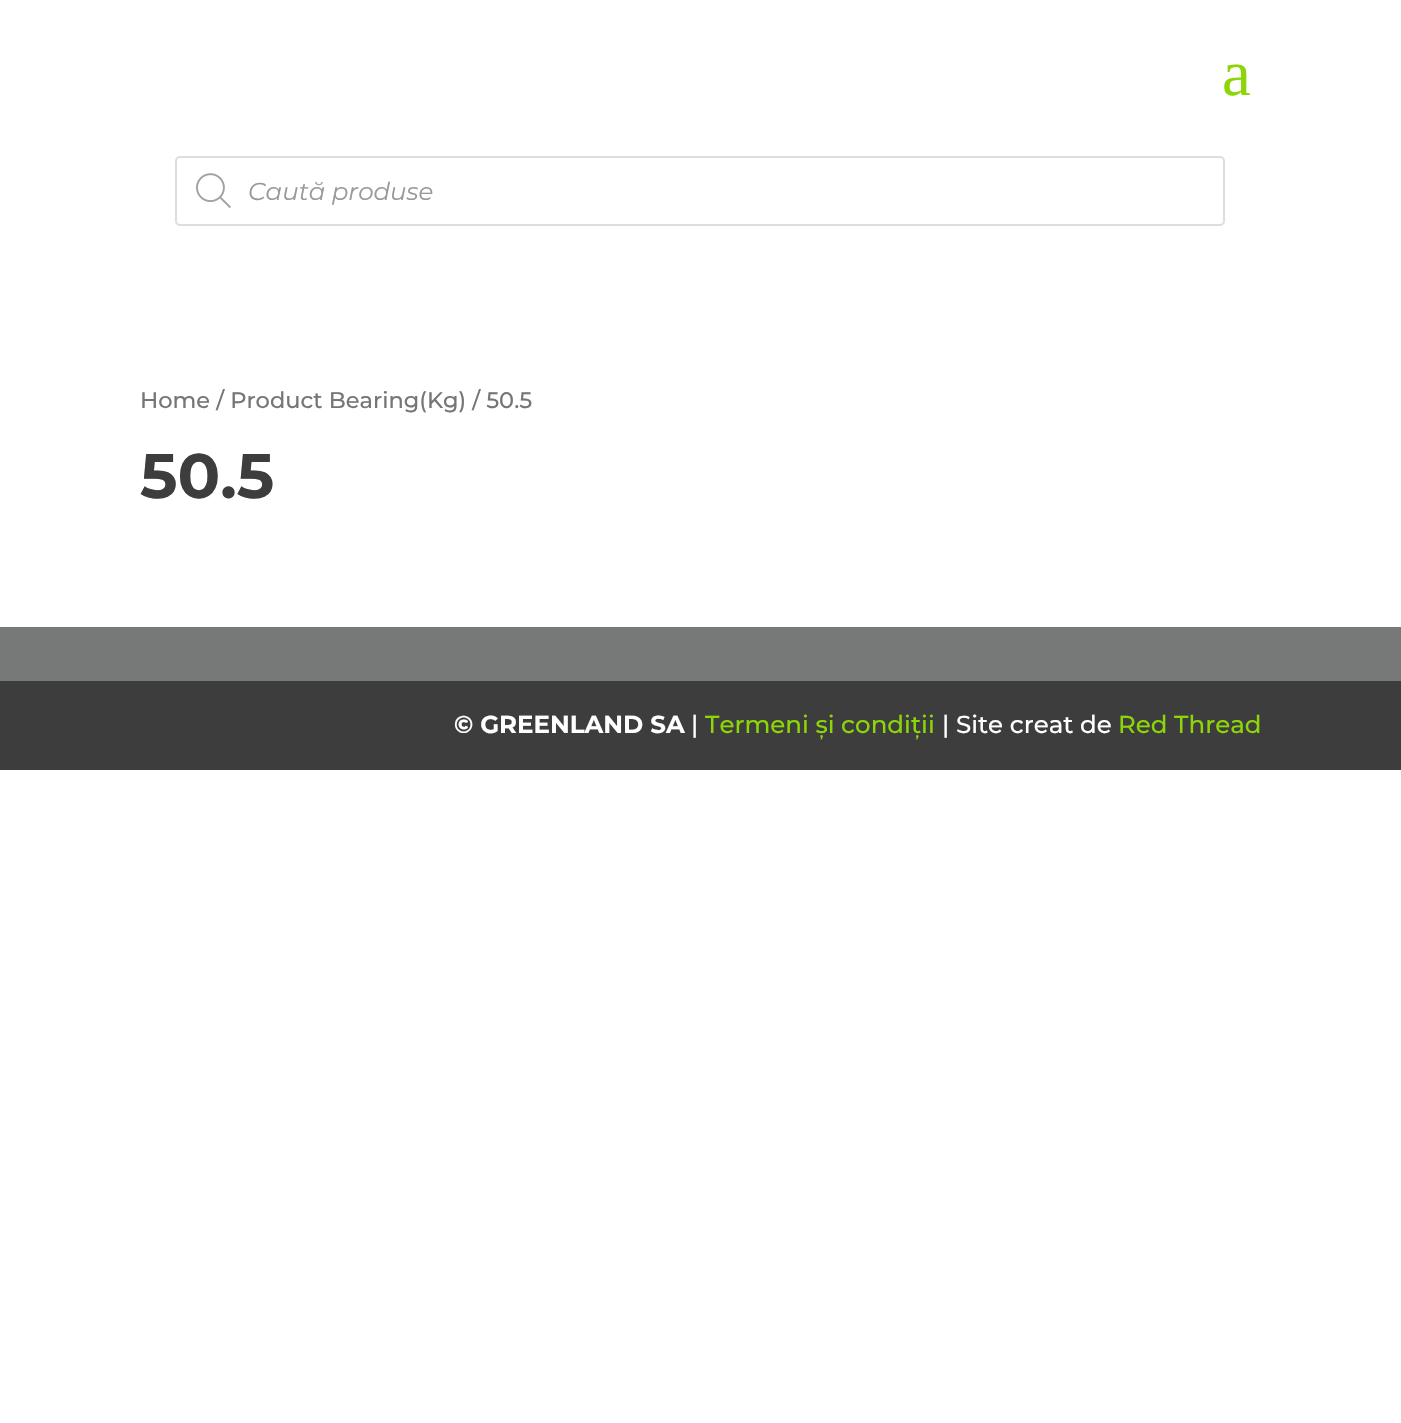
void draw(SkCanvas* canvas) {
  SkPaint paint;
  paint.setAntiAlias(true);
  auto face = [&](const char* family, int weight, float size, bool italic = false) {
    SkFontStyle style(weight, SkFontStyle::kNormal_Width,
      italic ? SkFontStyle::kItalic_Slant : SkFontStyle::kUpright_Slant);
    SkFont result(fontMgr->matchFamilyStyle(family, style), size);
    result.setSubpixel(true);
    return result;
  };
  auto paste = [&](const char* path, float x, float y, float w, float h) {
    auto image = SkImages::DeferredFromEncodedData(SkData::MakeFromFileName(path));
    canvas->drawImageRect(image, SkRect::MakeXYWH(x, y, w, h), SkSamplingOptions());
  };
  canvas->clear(0xffffffff);
  paint.setStroke(true);
  paint.setStrokeWidth(2);
  paint.setColor(0xffdddddd);
  canvas->drawRoundRect(SkRect::MakeXYWH(176, 157, 1048, 68), 4, 4, paint);
  paste("img/1.png", 196, 173, 35, 35);
  paint.setStroke(false);
  paint.setColor(0xff777978);
  canvas->drawRect(SkRect::MakeXYWH(0, 627, 1401, 54), paint);
  paint.setColor(0xff3c3d3c);
  canvas->drawRect(SkRect::MakeXYWH(0, 681, 1401, 89), paint);
  auto f0 = face("Liberation Serif", 400, 65);
  paint.setColor(0xff8cd509);
  canvas->drawString("a", 1222, 95, f0, paint);
  auto f1 = face("Montserrat", 400, 24.5f, true);
  paint.setColor(0xff999999);
  canvas->drawString("Caută produse", 248, 200, f1, paint);
  auto f2 = face("Montserrat", 500, 22.5f);
  paint.setColor(0xff767676);
  canvas->drawString("Home / Product Bearing(Kg) / 50.5", 140, 408, f2, paint);
  auto f3 = face("Montserrat", 700, 63);
  paint.setColor(0xff3c3d3c);
  canvas->drawString("50.5", 140, 498, f3, paint);
  auto f4 = face("Montserrat", 700, 24.5f);
  paint.setColor(0xffffffff);
  canvas->drawString("© GREENLAND SA", 454, 733, f4, paint);
  auto f5 = face("Montserrat", 500, 24.5f);
  canvas->drawString("|", 691, 733, f5, paint);
  paint.setColor(0xff8cd509);
  canvas->drawString("Termeni și condiții", 705, 733, f5, paint);
  paint.setColor(0xffffffff);
  canvas->drawString("| Site creat de", 942, 733, f5, paint);
  paint.setColor(0xff8cd509);
  canvas->drawString("Red Thread", 1118, 733, f5, paint);
}
